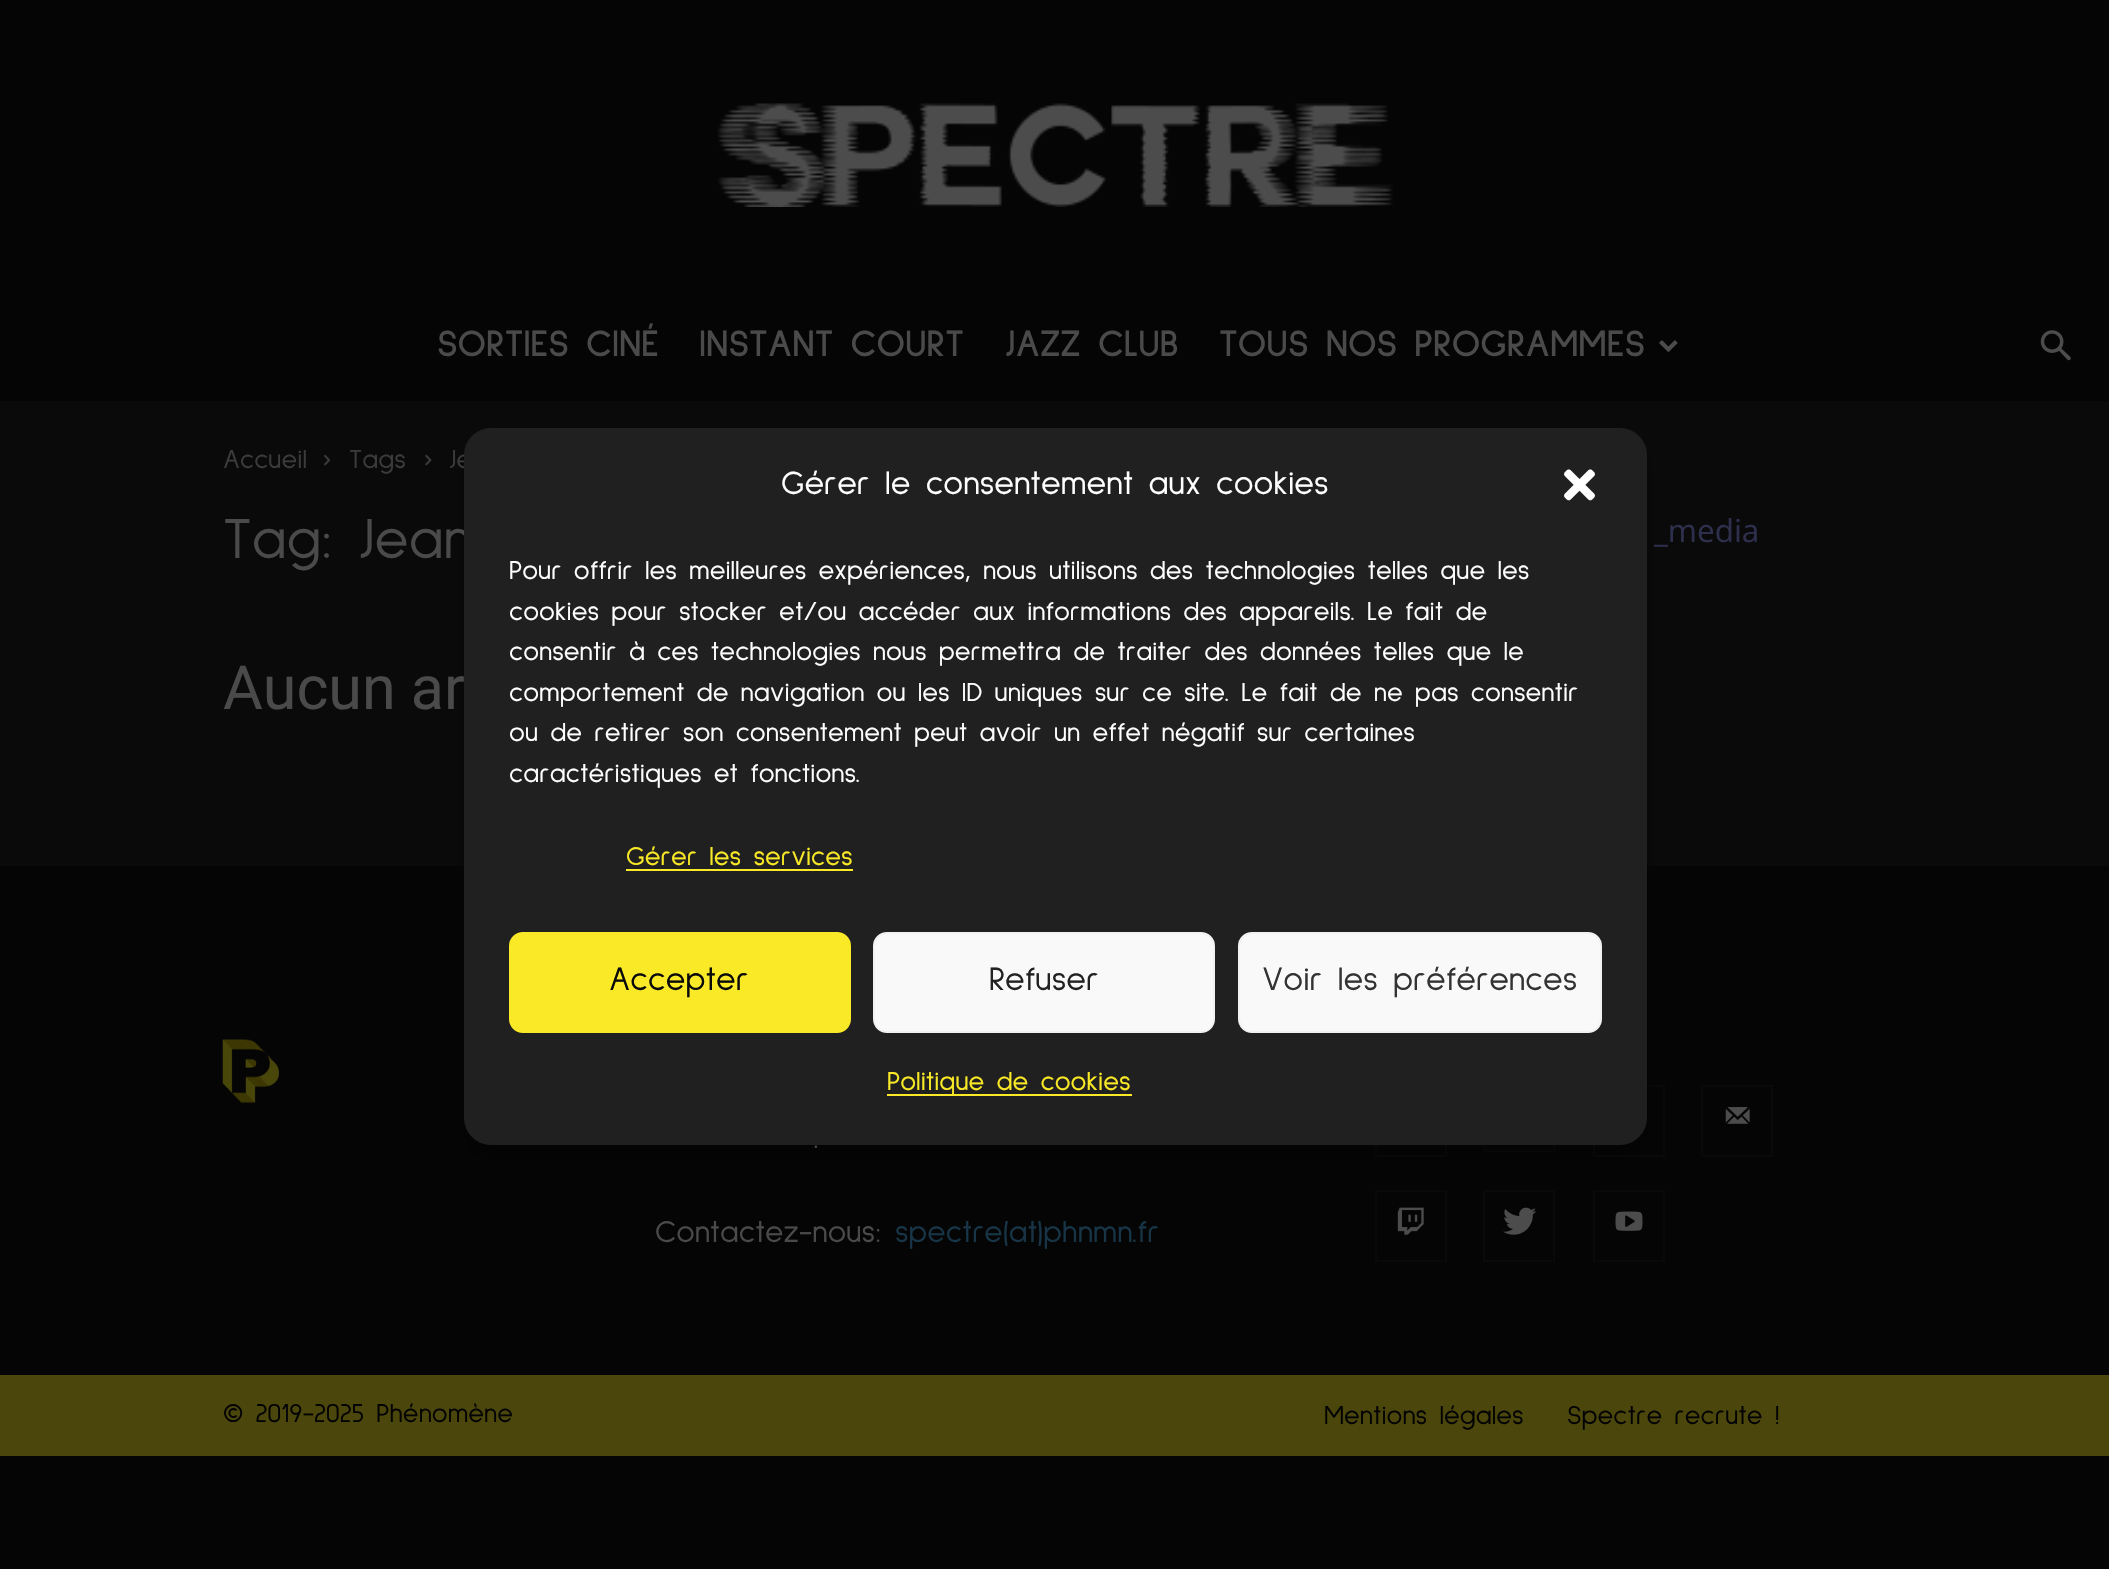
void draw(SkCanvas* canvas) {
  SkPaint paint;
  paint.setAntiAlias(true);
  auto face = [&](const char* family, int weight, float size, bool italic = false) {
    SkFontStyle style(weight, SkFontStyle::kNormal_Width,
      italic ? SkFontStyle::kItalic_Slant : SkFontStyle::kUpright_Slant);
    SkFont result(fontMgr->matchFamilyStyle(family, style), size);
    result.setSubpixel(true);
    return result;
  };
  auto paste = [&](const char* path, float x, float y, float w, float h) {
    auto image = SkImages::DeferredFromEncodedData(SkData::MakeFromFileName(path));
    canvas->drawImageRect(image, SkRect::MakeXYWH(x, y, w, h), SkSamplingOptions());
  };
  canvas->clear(0xff050505);
  paste("img/1.png", 717, 103, 676, 104);
  paste("img/2.png", 1659, 340, 19, 12);
  paste("img/3.png", 2040, 330, 31, 31);
  paint.setColor(0xff0a0a0a);
  canvas->drawRect(SkRect::MakeXYWH(0, 401, 2109, 465), paint);
  paste("img/4.png", 324, 454, 7, 12);
  paste("img/5.png", 425, 454, 7, 12);
  paste("img/6.png", 222, 1039, 57, 64);
  paint.setStroke(true);
  paint.setStrokeWidth(2);
  paint.setColor(0xff090909);
  canvas->drawRect(SkRect::MakeXYWH(1376, 1086, 70, 70), paint);
  canvas->drawRect(SkRect::MakeXYWH(1484, 1081, 70, 70), paint);
  canvas->drawRect(SkRect::MakeXYWH(1594, 1086, 70, 70), paint);
  paste("img/7.png", 1725, 1107, 25, 17);
  canvas->drawRect(SkRect::MakeXYWH(1702, 1086, 70, 70), paint);
  paste("img/8.png", 1397, 1207, 27, 28);
  canvas->drawRect(SkRect::MakeXYWH(1376, 1191, 70, 70), paint);
  paste("img/9.png", 1503, 1207, 33, 28);
  canvas->drawRect(SkRect::MakeXYWH(1484, 1191, 70, 70), paint);
  paste("img/10.png", 1615, 1211, 28, 20);
  canvas->drawRect(SkRect::MakeXYWH(1594, 1191, 70, 70), paint);
  paint.setStroke(false);
  paint.setColor(0xff4b460b);
  canvas->drawRect(SkRect::MakeXYWH(0, 1375, 2109, 81), paint);
  paint.setColor(0x3b000000);
  paint.setMaskFilter(SkMaskFilter::MakeBlur(kNormal_SkBlurStyle, 7));
  canvas->drawRoundRect(SkRect::MakeXYWH(464, 441, 1183, 718), 27, 27, paint);
  paint.setMaskFilter(nullptr);
  auto f0 = face("Sulphur Point", 700, 38.25f);
  paint.setColor(0xff4a4a4a);
  {
    const struct { const char* s; float x, y; } items[] = {
      {"SORTIES CINÉ", 437, 356},
      {"INSTANT COURT", 699, 356},
      {"JAZZ CLUB", 1005, 356},
      {"TOUS NOS PROGRAMMES", 1219, 356},
    };
    for (auto [s, x, y] : items) {
      canvas->drawString(s, x, y, f0, paint);
    }
  }
  auto f1 = face("Sulphur Point", 400, 27);
  paint.setColor(0xff3b3b3b);
  {
    const struct { const char* s; float x, y; } items[] = {
      {"Accueil", 223, 468},
      {"Tags", 349, 468},
      {"Je", 449, 468},
    };
    for (auto [s, x, y] : items) {
      canvas->drawString(s, x, y, f1, paint);
    }
  }
  auto f2 = face("Sulphur Point", 400, 58.5f);
  paint.setColor(0xff4a4a4a);
  canvas->drawString("Tag: Jean", 223, 558, f2, paint);
  auto f3 = face("Roboto", 400, 61);
  canvas->drawString("Aucun ar", 223, 709, f3, paint);
  auto f4 = face("Open Sans", 400, 31.5f);
  paint.setColor(0xff2d2f4d);
  canvas->drawString("_media", 1654, 542, f4, paint);
  auto f5 = face("Sulphur Point", 400, 31.5f);
  paint.setColor(0xff4a4a4a);
  canvas->drawString(".", 814, 1148, f5, paint);
  canvas->drawString("Contactez-nous:", 655, 1242, f5, paint);
  paint.setColor(0xff173546);
  canvas->drawString("spectre(at)phnmn.fr", 895, 1242, f5, paint);
  paint.setColor(0xff030303);
  {
    const struct { const char* s; float x, y; } items[] = {
      {"© 2019-2025 Phénomène", 223, 1422},
      {"Mentions légales", 1324, 1424},
      {"Spectre recrute !", 1567, 1424},
    };
    for (auto [s, x, y] : items) {
      canvas->drawString(s, x, y, f1, paint);
    }
  }
  paint.setColor(0xff202020);
  canvas->drawRoundRect(SkRect::MakeXYWH(464, 428, 1183, 717), 27, 27, paint);
  auto f6 = face("Sulphur Point", 400, 33.75f);
  paint.setColor(0xffffffff);
  canvas->drawString("Gérer le consentement aux cookies", 781, 494, f6, paint);
  paste("img/11.png", 1564, 469, 31, 32);
  {
    const struct { const char* s; float x, y; } items[] = {
      {"Pour offrir les meilleures expériences, nous utilisons des technologies telles que les", 509, 579},
      {"cookies pour stocker et/ou accéder aux informations des appareils. Le fait de", 509, 620},
      {"consentir à ces technologies nous permettra de traiter des données telles que le", 509, 660},
      {"comportement de navigation ou les ID uniques sur ce site. Le fait de ne pas consentir", 509, 701},
      {"ou de retirer son consentement peut avoir un effet négatif sur certaines", 509, 741},
      {"caractéristiques et fonctions.", 509, 782},
    };
    for (auto [s, x, y] : items) {
      canvas->drawString(s, x, y, f1, paint);
    }
  }
  paint.setColor(0xfffae926);
  canvas->drawString("Gérer les services", 626, 865, f1, paint);
  canvas->drawRect(SkRect::MakeXYWH(626, 869, 227, 2), paint);
  canvas->drawRoundRect(SkRect::MakeXYWH(510, 933, 340, 99), 13, 13, paint);
  paint.setStroke(true);
  canvas->drawRoundRect(SkRect::MakeXYWH(510, 933, 340, 99), 13, 13, paint);
  paint.setStroke(false);
  paint.setColor(0xff0a0a0a);
  canvas->drawString("Accepter", 609, 990, f6, paint);
  paint.setColor(0xfff9f9f9);
  canvas->drawRoundRect(SkRect::MakeXYWH(874, 933, 340, 99), 13, 13, paint);
  paint.setStroke(true);
  paint.setColor(0xfff2f2f2);
  canvas->drawRoundRect(SkRect::MakeXYWH(874, 933, 340, 99), 13, 13, paint);
  paint.setStroke(false);
  paint.setColor(0xff222222);
  canvas->drawString("Refuser", 989, 990, f6, paint);
  paint.setColor(0xfff9f9f9);
  canvas->drawRoundRect(SkRect::MakeXYWH(1239, 933, 362, 99), 13, 13, paint);
  paint.setStroke(true);
  paint.setColor(0xfff2f2f2);
  canvas->drawRoundRect(SkRect::MakeXYWH(1239, 933, 362, 99), 13, 13, paint);
  paint.setStroke(false);
  paint.setColor(0xff333333);
  canvas->drawString("Voir les préférences", 1262, 990, f6, paint);
  paint.setColor(0xfffae926);
  canvas->drawRect(SkRect::MakeXYWH(887, 1094, 245, 2), paint);
  canvas->drawString("Politique de cookies", 887, 1090, f1, paint);
}
